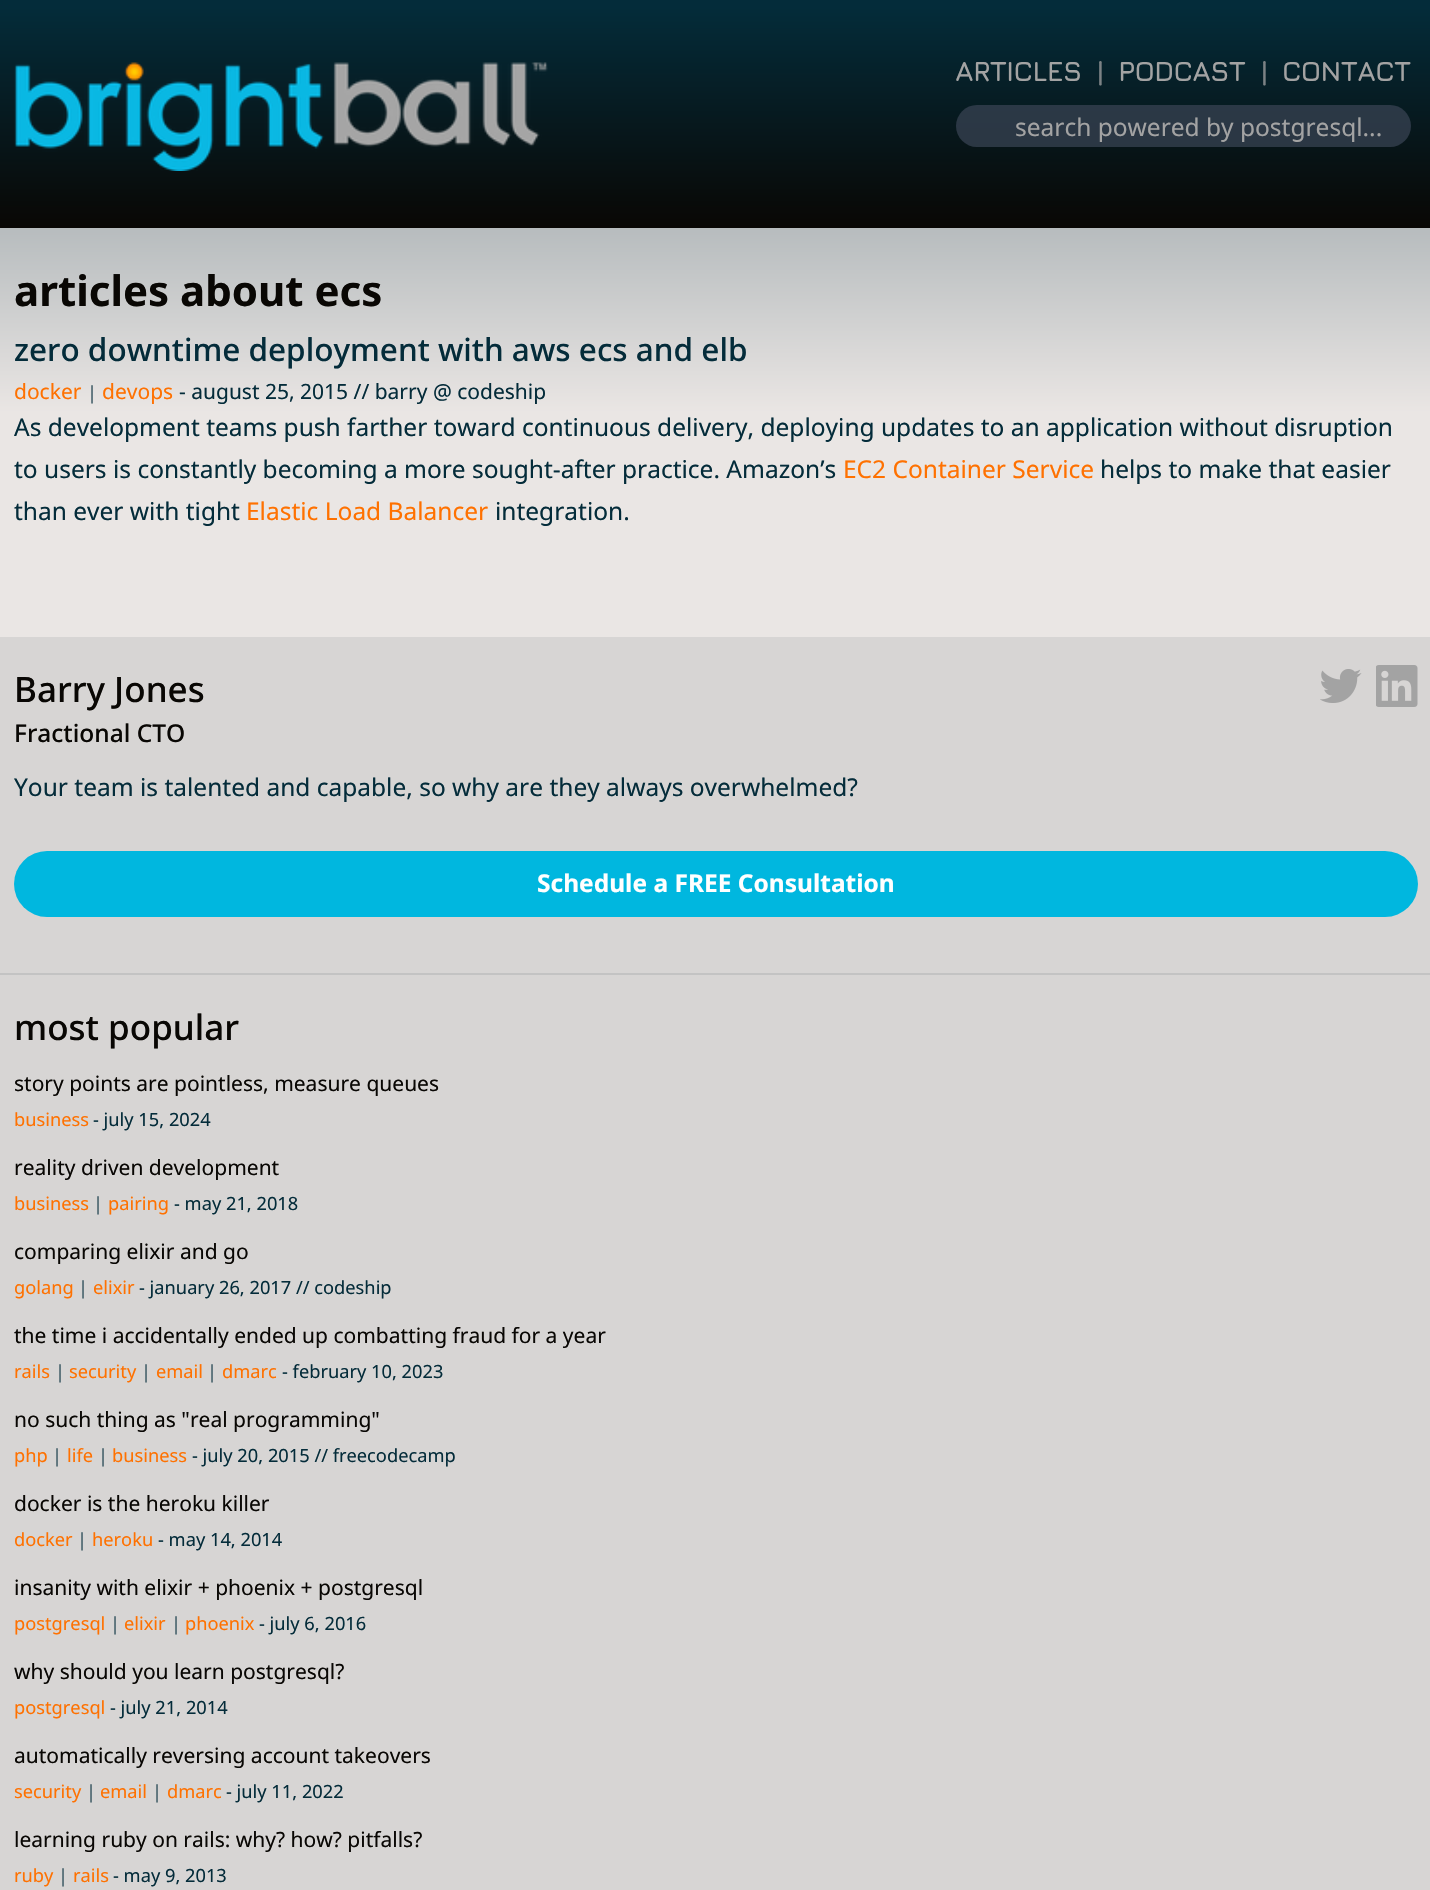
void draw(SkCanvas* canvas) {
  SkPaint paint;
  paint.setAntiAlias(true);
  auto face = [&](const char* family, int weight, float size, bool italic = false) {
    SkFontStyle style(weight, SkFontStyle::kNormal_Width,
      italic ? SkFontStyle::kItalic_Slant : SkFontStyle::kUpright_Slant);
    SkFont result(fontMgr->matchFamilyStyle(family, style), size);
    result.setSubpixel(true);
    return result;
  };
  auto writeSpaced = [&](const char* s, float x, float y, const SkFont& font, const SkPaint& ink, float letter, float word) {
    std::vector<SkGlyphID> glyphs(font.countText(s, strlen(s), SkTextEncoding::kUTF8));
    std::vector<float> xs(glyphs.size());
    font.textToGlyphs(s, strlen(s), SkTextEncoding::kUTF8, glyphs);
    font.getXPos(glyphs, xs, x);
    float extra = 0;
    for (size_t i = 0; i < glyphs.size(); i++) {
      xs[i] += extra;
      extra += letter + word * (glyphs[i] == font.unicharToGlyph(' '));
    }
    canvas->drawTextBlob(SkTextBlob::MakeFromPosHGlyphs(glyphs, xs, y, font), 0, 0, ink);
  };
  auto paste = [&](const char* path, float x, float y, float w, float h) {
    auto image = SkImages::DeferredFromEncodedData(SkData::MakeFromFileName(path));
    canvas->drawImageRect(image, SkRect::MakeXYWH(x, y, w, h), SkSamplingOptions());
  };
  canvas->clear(0xffffffff);
  {
    const SkColor colors[] = {0xff042c3a, 0xff090704};
    const float stops[] = {0.1f, 1};
    const SkPoint ends[] = {{716, -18}, {716, 228}};
    paint.setShader(SkGradientShader::MakeLinear(ends, colors, stops, 2, SkTileMode::kClamp));
    paint.setAlpha(255);
  }
  canvas->drawRect(SkRect::MakeXYWH(0, 0, 1430, 228), paint);
  paste("img/1.png", 14, 62, 534, 109);
  paint.setShader(nullptr);
  paint.setColor(0xbf374151);
  canvas->drawRoundRect(SkRect::MakeXYWH(956, 105, 455, 42), 21, 21, paint);
  {
    const SkColor colors[] = {0xffb7bcbe, 0xffeae6e4};
    const float stops[] = {0, 0.07f};
    const SkPoint ends[] = {{716, 228}, {716, 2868}};
    paint.setShader(SkGradientShader::MakeLinear(ends, colors, stops, 2, SkTileMode::kClamp));
    paint.setAlpha(255);
  }
  canvas->drawRect(SkRect::MakeXYWH(0, 228, 1430, 409), paint);
  paint.setShader(nullptr);
  paint.setColor(0xffd7d5d4);
  canvas->drawRect(SkRect::MakeXYWH(0, 637, 1430, 336), paint);
  paint.setColor(0xffc3c3c3);
  canvas->drawRect(SkRect::MakeXYWH(0, 973, 1430, 2), paint);
  paste("img/2.png", 1320, 669, 42, 34);
  paste("img/3.png", 1376, 665, 42, 42);
  paint.setColor(0xff00b7df);
  canvas->drawRoundRect(SkRect::MakeXYWH(14, 851, 1404, 66), 33, 33, paint);
  paint.setColor(0xffd7d5d4);
  canvas->drawRect(SkRect::MakeXYWH(0, 975, 1430, 915), paint);
  auto f0 = face("Jura", 300, 28);
  paint.setColor(0xffa3a3a3);
  writeSpaced("ARTICLES", 955, 81, f0, paint, -0.75f, 0);
  paint.setColor(0xff7c8285);
  writeSpaced("|", 1097, 81, f0, paint, -0.75f, 0);
  paint.setColor(0xffa3a3a3);
  writeSpaced("PODCAST", 1118, 81, f0, paint, -0.75f, 0);
  paint.setColor(0xff7c8285);
  writeSpaced("|", 1261, 81, f0, paint, -0.75f, 0);
  paint.setColor(0xffa3a3a3);
  writeSpaced("CONTACT", 1282, 81, f0, paint, -0.75f, 0);
  auto f1 = face("Noto Sans", 400, 24.5f);
  canvas->drawString("search powered by postgresql...", 1015, 136, f1, paint);
  auto f2 = face("Noto Sans", 700, 42);
  paint.setColor(0xff090704);
  canvas->drawString("articles about ecs", 14, 306, f2, paint);
  auto f3 = face("Noto Sans", 500, 31.5f);
  paint.setColor(0xff042c3a);
  canvas->drawString("zero downtime deployment with aws ecs and elb", 14, 361, f3, paint);
  auto f4 = face("Noto Sans", 400, 21);
  paint.setColor(0xffff7100);
  canvas->drawString("docker", 14, 399, f4, paint);
  auto f5 = face("Noto Sans", 400, 18.25f);
  paint.setColor(0xff3c5964);
  canvas->drawString("|", 87, 399, f5, paint);
  paint.setColor(0xffff7100);
  canvas->drawString("devops", 102, 399, f4, paint);
  paint.setColor(0xff042c3a);
  canvas->drawString("- august 25, 2015 // barry @ codeship", 179, 399, f4, paint);
  canvas->drawString("As development teams push farther toward continuous delivery, deploying updates to an application without disruption", 14, 436, f1, paint);
  canvas->drawString("to users is constantly becoming a more sought-after practice. Amazon’s", 14, 478, f1, paint);
  paint.setColor(0xffff7100);
  canvas->drawString("EC2 Container Service", 843, 478, f1, paint);
  paint.setColor(0xff042c3a);
  canvas->drawString("helps to make that easier", 1100, 478, f1, paint);
  canvas->drawString("than ever with tight", 14, 520, f1, paint);
  paint.setColor(0xffff7100);
  canvas->drawString("Elastic Load Balancer", 246, 520, f1, paint);
  paint.setColor(0xff042c3a);
  canvas->drawString("integration.", 495, 520, f1, paint);
  auto f6 = face("Noto Sans", 500, 35);
  paint.setColor(0xff090704);
  canvas->drawString("Barry Jones", 14, 702, f6, paint);
  auto f7 = face("Noto Sans", 500, 24.5f);
  canvas->drawString("Fractional CTO", 14, 742, f7, paint);
  paint.setColor(0xff042c3a);
  canvas->drawString("Your team is talented and capable, so why are they always overwhelmed?", 14, 796, f1, paint);
  auto f8 = face("Noto Sans", 700, 24.5f);
  paint.setColor(0xffffffff);
  canvas->drawString("Schedule a FREE Consultation", 537, 892, f8, paint);
  paint.setColor(0xff090704);
  canvas->drawString("most popular", 14, 1040, f6, paint);
  canvas->drawString("story points are pointless, measure queues", 14, 1091, f4, paint);
  paint.setColor(0xffff7100);
  canvas->drawString("business", 14, 1126, f5, paint);
  paint.setColor(0xff042c3a);
  canvas->drawString("- july 15, 2024", 93, 1126, f5, paint);
  paint.setColor(0xff090704);
  canvas->drawString("reality driven development", 14, 1175, f4, paint);
  paint.setColor(0xffff7100);
  canvas->drawString("business", 14, 1210, f5, paint);
  paint.setColor(0xff3c5964);
  canvas->drawString("|", 93, 1210, f5, paint);
  paint.setColor(0xffff7100);
  canvas->drawString("pairing", 108, 1210, f5, paint);
  paint.setColor(0xff042c3a);
  canvas->drawString("- may 21, 2018", 174, 1210, f5, paint);
  paint.setColor(0xff090704);
  canvas->drawString("comparing elixir and go", 14, 1259, f4, paint);
  paint.setColor(0xffff7100);
  canvas->drawString("golang", 14, 1294, f5, paint);
  paint.setColor(0xff3c5964);
  canvas->drawString("|", 78, 1294, f5, paint);
  paint.setColor(0xffff7100);
  canvas->drawString("elixir", 93, 1294, f5, paint);
  paint.setColor(0xff042c3a);
  canvas->drawString("- january 26, 2017 // codeship", 139, 1294, f5, paint);
  paint.setColor(0xff090704);
  canvas->drawString("the time i accidentally ended up combatting fraud for a year", 14, 1343, f4, paint);
  paint.setColor(0xffff7100);
  canvas->drawString("rails", 14, 1378, f5, paint);
  paint.setColor(0xff3c5964);
  canvas->drawString("|", 55, 1378, f5, paint);
  paint.setColor(0xffff7100);
  canvas->drawString("security", 69, 1378, f5, paint);
  paint.setColor(0xff3c5964);
  canvas->drawString("|", 141, 1378, f5, paint);
  paint.setColor(0xffff7100);
  canvas->drawString("email", 156, 1378, f5, paint);
  paint.setColor(0xff3c5964);
  canvas->drawString("|", 207, 1378, f5, paint);
  paint.setColor(0xffff7100);
  canvas->drawString("dmarc", 222, 1378, f5, paint);
  paint.setColor(0xff042c3a);
  canvas->drawString("- february 10, 2023", 282, 1378, f5, paint);
  paint.setColor(0xff090704);
  canvas->drawString("no such thing as \"real programming\"", 14, 1427, f4, paint);
  paint.setColor(0xffff7100);
  canvas->drawString("php", 14, 1462, f5, paint);
  paint.setColor(0xff3c5964);
  canvas->drawString("|", 52, 1462, f5, paint);
  paint.setColor(0xffff7100);
  canvas->drawString("life", 67, 1462, f5, paint);
  paint.setColor(0xff3c5964);
  canvas->drawString("|", 98, 1462, f5, paint);
  paint.setColor(0xffff7100);
  canvas->drawString("business", 112, 1462, f5, paint);
  paint.setColor(0xff042c3a);
  canvas->drawString("- july 20, 2015 // freecodecamp", 192, 1462, f5, paint);
  paint.setColor(0xff090704);
  canvas->drawString("docker is the heroku killer", 14, 1511, f4, paint);
  paint.setColor(0xffff7100);
  canvas->drawString("docker", 14, 1546, f5, paint);
  paint.setColor(0xff3c5964);
  canvas->drawString("|", 77, 1546, f5, paint);
  paint.setColor(0xffff7100);
  canvas->drawString("heroku", 92, 1546, f5, paint);
  paint.setColor(0xff042c3a);
  canvas->drawString("- may 14, 2014", 158, 1546, f5, paint);
  paint.setColor(0xff090704);
  canvas->drawString("insanity with elixir + phoenix + postgresql", 14, 1595, f4, paint);
  paint.setColor(0xffff7100);
  canvas->drawString("postgresql", 14, 1630, f5, paint);
  paint.setColor(0xff3c5964);
  canvas->drawString("|", 110, 1630, f5, paint);
  paint.setColor(0xffff7100);
  canvas->drawString("elixir", 124, 1630, f5, paint);
  paint.setColor(0xff3c5964);
  canvas->drawString("|", 171, 1630, f5, paint);
  paint.setColor(0xffff7100);
  canvas->drawString("phoenix", 185, 1630, f5, paint);
  paint.setColor(0xff042c3a);
  canvas->drawString("- july 6, 2016", 259, 1630, f5, paint);
  paint.setColor(0xff090704);
  canvas->drawString("why should you learn postgresql?", 14, 1679, f4, paint);
  paint.setColor(0xffff7100);
  canvas->drawString("postgresql", 14, 1714, f5, paint);
  paint.setColor(0xff042c3a);
  canvas->drawString("- july 21, 2014", 110, 1714, f5, paint);
  paint.setColor(0xff090704);
  canvas->drawString("automatically reversing account takeovers", 14, 1763, f4, paint);
  paint.setColor(0xffff7100);
  canvas->drawString("security", 14, 1798, f5, paint);
  paint.setColor(0xff3c5964);
  canvas->drawString("|", 86, 1798, f5, paint);
  paint.setColor(0xffff7100);
  canvas->drawString("email", 100, 1798, f5, paint);
  paint.setColor(0xff3c5964);
  canvas->drawString("|", 152, 1798, f5, paint);
  paint.setColor(0xffff7100);
  canvas->drawString("dmarc", 167, 1798, f5, paint);
  paint.setColor(0xff042c3a);
  canvas->drawString("- july 11, 2022", 226, 1798, f5, paint);
  paint.setColor(0xff090704);
  canvas->drawString("learning ruby on rails: why? how? pitfalls?", 14, 1847, f4, paint);
  paint.setColor(0xffff7100);
  canvas->drawString("ruby", 14, 1882, f5, paint);
  paint.setColor(0xff3c5964);
  canvas->drawString("|", 58, 1882, f5, paint);
  paint.setColor(0xffff7100);
  canvas->drawString("rails", 73, 1882, f5, paint);
  paint.setColor(0xff042c3a);
  canvas->drawString("- may 9, 2013", 113, 1882, f5, paint);
}
